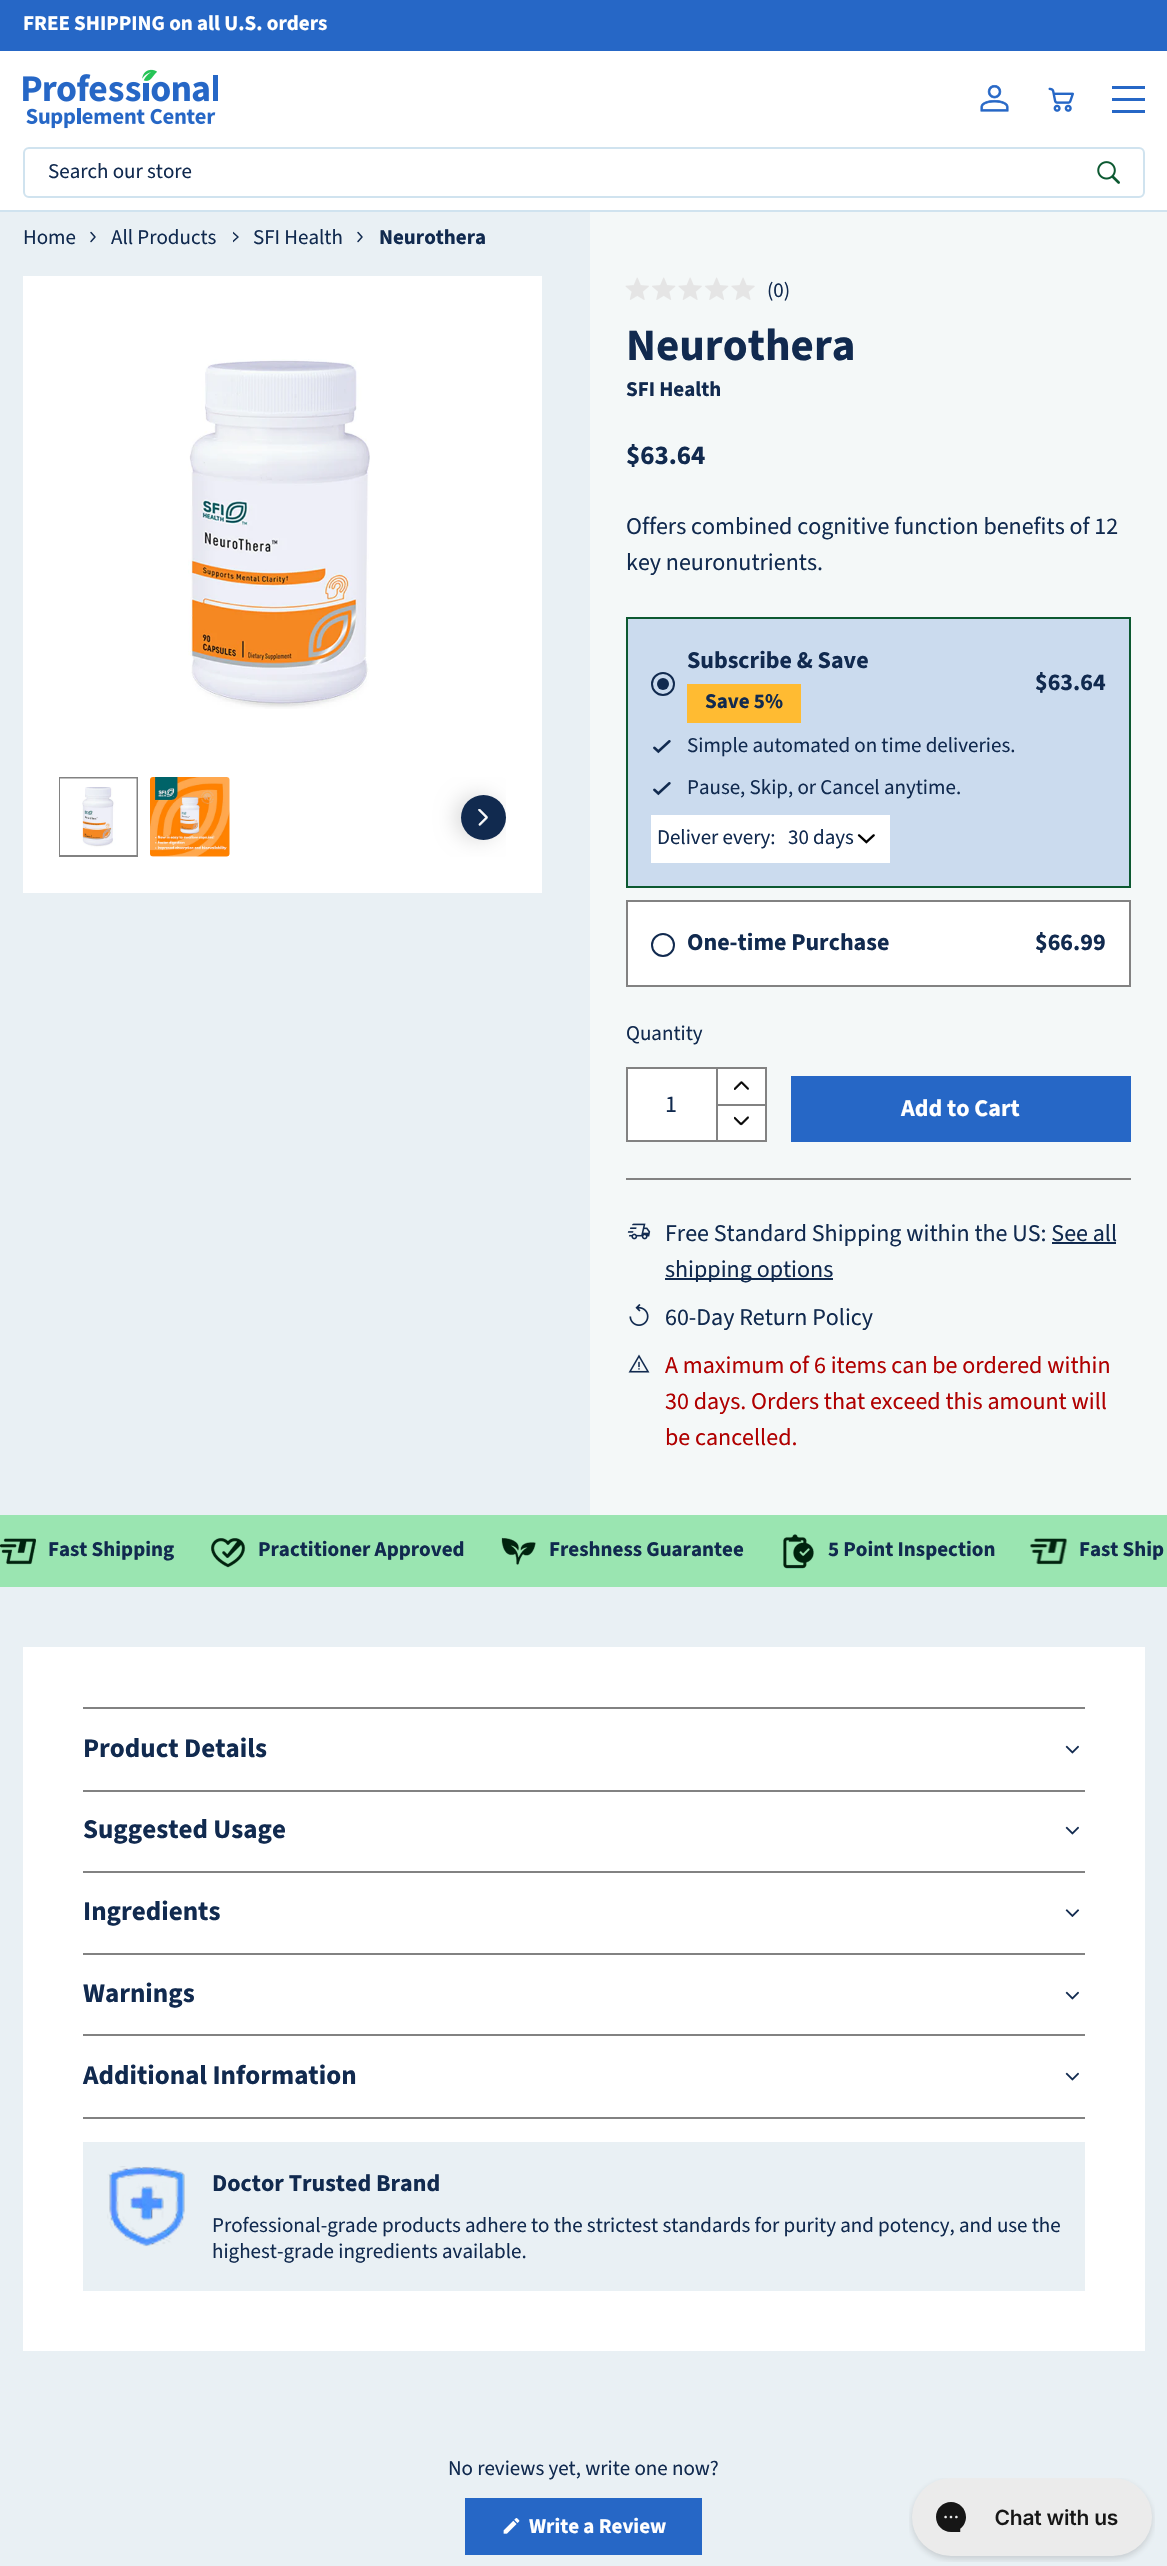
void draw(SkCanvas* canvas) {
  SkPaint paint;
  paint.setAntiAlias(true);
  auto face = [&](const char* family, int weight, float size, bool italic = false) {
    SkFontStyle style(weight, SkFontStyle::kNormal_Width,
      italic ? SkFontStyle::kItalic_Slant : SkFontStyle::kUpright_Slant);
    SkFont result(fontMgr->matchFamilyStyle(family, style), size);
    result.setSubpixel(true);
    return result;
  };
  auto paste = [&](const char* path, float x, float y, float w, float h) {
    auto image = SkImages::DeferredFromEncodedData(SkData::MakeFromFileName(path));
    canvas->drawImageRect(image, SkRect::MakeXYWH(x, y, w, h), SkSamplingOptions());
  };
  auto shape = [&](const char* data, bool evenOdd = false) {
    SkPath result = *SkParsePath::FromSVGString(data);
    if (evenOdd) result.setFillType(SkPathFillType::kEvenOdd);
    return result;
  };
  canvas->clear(0xffe9f0f4);
  {
    const struct { float x, y, w, h; SkColor color; } items[] = {
      {0, 0, 1167, 51, 0xff2667c6},
      {0, 51, 1167, 159, 0xffffffff},
      {0, 210, 1167, 2, 0xffd0e3ef},
    };
    for (auto [x, y, w, h, color] : items) {
      paint.setColor(color);
      canvas->drawRect(SkRect::MakeXYWH(x, y, w, h), paint);
    }
  }
  paste("img/1.png", 23, 69, 195, 60);
  paste("img/2.png", 980, 84, 29, 28);
  paste("img/3.png", 1048, 87, 26, 25);
  {
    const struct { float x, y, w, h; SkColor color; } items[] = {
      {1112, 98, 33, 3, 0xff2667c6},
      {1112, 86, 33, 3, 0xff2667c6},
      {1112, 110, 33, 3, 0xff2667c6},
    };
    for (auto [x, y, w, h, color] : items) {
      paint.setColor(color);
      canvas->drawRect(SkRect::MakeXYWH(x, y, w, h), paint);
    }
  }
  paint.setStroke(true);
  paint.setStrokeWidth(2);
  paint.setColor(0xffd0e3ef);
  canvas->drawRoundRect(SkRect::MakeXYWH(24, 148, 1120, 49), 5, 5, paint);
  paste("img/4.png", 1097, 161, 23, 23);
  paint.setStrokeWidth(1.5f);
  paint.setStrokeCap(SkPaint::kRound_Cap);
  paint.setStrokeJoin(SkPaint::kRound_Join);
  paint.setColor(0xff112a4f);
  canvas->drawPath(shape("M91 232.5L95 237L91 241.5"), paint);
  canvas->save();
  canvas->clipRect(SkRect::MakeXYWH(233, 230, 6, 15));
  canvas->drawPath(shape("M233 232.5L238 237L233 241.5"), paint);
  canvas->restore();
  canvas->drawPath(shape("M358 232.5L362 237L358 241.5"), paint);
  paint.setStroke(false);
  paint.setColor(0xffffffff);
  canvas->drawRect(SkRect::MakeXYWH(23, 276, 519, 617), paint);
  paste("img/5.png", 188, 359, 182, 350);
  paint.setStroke(true);
  paint.setStrokeWidth(2);
  paint.setStrokeCap(SkPaint::kButt_Cap);
  paint.setStrokeJoin(SkPaint::kMiter_Join);
  paint.setColor(0xff828282);
  canvas->drawRect(SkRect::MakeXYWH(60, 778, 77, 78), paint);
  paste("img/6.png", 60, 778, 77, 77);
  paste("img/7.png", 150, 777, 80, 80);
  canvas->save();
  canvas->clipRect(SkRect::MakeXYWH(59, 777, 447, 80));
  paint.setStroke(false);
  paint.setColor(0x24000000);
  paint.setMaskFilter(SkMaskFilter::MakeBlur(kNormal_SkBlurStyle, 10));
  canvas->drawRoundRect(SkRect::MakeXYWH(455, 795, 45, 45), 22.5f, 22.5f, paint);
  paint.setMaskFilter(nullptr);
  canvas->restore();
  paint.setColor(0xff112a4f);
  canvas->drawCircle(483.5f, 817.5f, 22.5f, paint);
  paste("img/8.png", 478, 809, 10, 17);
  paint.setColor(0xfff4f8f8);
  canvas->drawRect(SkRect::MakeXYWH(590, 212, 577, 1303), paint);
  paste("img/9.png", 625, 277, 130, 23);
  paint.setColor(0xffcbdbee);
  canvas->drawRect(SkRect::MakeXYWH(627, 618, 503, 269), paint);
  paint.setStroke(true);
  paint.setColor(0xff0c5931);
  canvas->drawRect(SkRect::MakeXYWH(627, 618, 503, 269), paint);
  paint.setColor(0xff112a4f);
  canvas->drawCircle(663, 684, 11, paint);
  paint.setStroke(false);
  canvas->drawCircle(663, 684, 6, paint);
  paint.setColor(0xffffbb32);
  canvas->drawRect(SkRect::MakeXYWH(687, 684, 114, 39), paint);
  paste("img/10.png", 653, 740, 18, 14);
  paste("img/10.png", 653, 782, 18, 14);
  paint.setColor(0xffffffff);
  canvas->drawRect(SkRect::MakeXYWH(651, 815, 239, 48), paint);
  paste("img/11.png", 857, 834, 18, 10);
  canvas->drawRect(SkRect::MakeXYWH(627, 901, 503, 85), paint);
  paint.setStroke(true);
  paint.setColor(0xff828282);
  canvas->drawRect(SkRect::MakeXYWH(627, 901, 503, 85), paint);
  paint.setColor(0xff112a4f);
  canvas->drawCircle(663, 945, 11, paint);
  paint.setStroke(false);
  {
    const struct { float x, y, w, h; SkColor color; } items[] = {
      {628, 1069, 88, 71, 0xffffffff},
      {626, 1067, 90, 2, 0xff828282},
      {626, 1140, 90, 2, 0xff828282},
      {626, 1067, 2, 75, 0xff828282},
      {718, 1069, 47, 35, 0xffffffff},
    };
    for (auto [x, y, w, h, color] : items) {
      paint.setColor(color);
      canvas->drawRect(SkRect::MakeXYWH(x, y, w, h), paint);
    }
  }
  paste("img/12.png", 734, 1081, 15, 9);
  paint.setStroke(true);
  paint.setColor(0xff828282);
  canvas->drawRect(SkRect::MakeXYWH(717, 1068, 49, 37), paint);
  paint.setStroke(false);
  paint.setColor(0xffffffff);
  canvas->drawRect(SkRect::MakeXYWH(718, 1106, 47, 34), paint);
  paste("img/13.png", 734, 1116, 15, 10);
  {
    const struct { float x, y, w, h; SkColor color; } items[] = {
      {765, 1106, 2, 36, 0xff828282},
      {716, 1140, 51, 2, 0xff828282},
      {716, 1106, 2, 36, 0xff828282},
      {791, 1076, 340, 66, 0xff2667c6},
      {626, 1178, 505, 2, 0xff828282},
    };
    for (auto [x, y, w, h, color] : items) {
      paint.setColor(color);
      canvas->drawRect(SkRect::MakeXYWH(x, y, w, h), paint);
    }
  }
  paste("img/14.png", 627, 1223, 24, 17);
  paint.setColor(0xff112a4f);
  canvas->drawRect(SkRect::MakeXYWH(1052, 1242, 64, 2), paint);
  canvas->drawRect(SkRect::MakeXYWH(665, 1278, 168, 2), paint);
  paste("img/15.png", 629, 1304, 20, 22);
  paste("img/16.png", 628, 1354, 22, 19);
  paint.setColor(0xff9ae5b1);
  canvas->drawRect(SkRect::MakeXYWH(0, 1515, 1167, 72), paint);
  paste("img/17.png", 0, 1538, 36, 27);
  paste("img/18.png", 211, 1538, 35, 30);
  paste("img/19.png", 501, 1537, 35, 28);
  paste("img/20.png", 783, 1534, 31, 35);
  paste("img/21.png", 1030, 1538, 37, 27);
  {
    const struct { float x, y, w, h; SkColor color; } items[] = {
      {23, 1647, 1122, 704, 0xffffffff},
      {83, 1790, 1002, 2, 0xff828282},
      {83, 1707, 1002, 2, 0xff828282},
    };
    for (auto [x, y, w, h, color] : items) {
      paint.setColor(color);
      canvas->drawRect(SkRect::MakeXYWH(x, y, w, h), paint);
    }
  }
  paste("img/22.png", 1065, 1745, 14, 9);
  canvas->drawRect(SkRect::MakeXYWH(83, 1871, 1002, 2), paint);
  paste("img/22.png", 1065, 1826, 14, 9);
  canvas->drawRect(SkRect::MakeXYWH(83, 1953, 1002, 2), paint);
  paste("img/23.png", 1065, 1909, 15, 8);
  canvas->drawRect(SkRect::MakeXYWH(83, 2034, 1002, 2), paint);
  paste("img/22.png", 1065, 1991, 14, 9);
  canvas->drawRect(SkRect::MakeXYWH(83, 2117, 1002, 2), paint);
  paste("img/22.png", 1065, 2072, 14, 9);
  paint.setColor(0xffe9f0f4);
  canvas->drawRect(SkRect::MakeXYWH(83, 2142, 1002, 149), paint);
  paste("img/24.png", 107, 2166, 78, 81);
  paint.setColor(0xff2667c6);
  canvas->drawRect(SkRect::MakeXYWH(465, 2498, 237, 57), paint);
  paste("img/25.png", 503, 2518, 17, 16);
  paste("img/26.png", 909, 2478, 246, 84);
  auto f0 = face("Source Sans 3", 700, 21);
  paint.setColor(0xffffffff);
  canvas->drawString("FREE SHIPPING on all U.S. orders", 23, 30, f0, paint);
  auto f1 = face("Source Sans 3", 400, 21);
  paint.setColor(0xff112a4f);
  {
    const struct { const char* s; float x, y; } items[] = {
      {"Search our store", 48, 178},
      {"Home", 23, 244},
      {"All Products", 111, 244},
      {"SFI Health", 253, 244},
    };
    for (auto [s, x, y] : items) {
      canvas->drawString(s, x, y, f1, paint);
    }
  }
  canvas->drawString("Neurothera", 379, 244, f0, paint);
  canvas->drawString("(0)", 767, 297, f1, paint);
  auto f2 = face("Source Sans 3", 700, 45);
  canvas->drawString("Neurothera", 626, 360, f2, paint);
  canvas->drawString("SFI Health", 626, 396, f0, paint);
  auto f3 = face("Source Sans 3", 700, 27);
  canvas->drawString("$63.64", 626, 464, f3, paint);
  auto f4 = face("Source Sans 3", 400, 24);
  canvas->drawString("Offers combined cognitive function benefits of 12", 626, 534, f4, paint);
  canvas->drawString("key neuronutrients.", 626, 570, f4, paint);
  auto f5 = face("Source Sans 3", 700, 24);
  canvas->drawString("Subscribe & Save", 687, 668, f5, paint);
  canvas->drawString("Save 5%", 705, 708, f0, paint);
  canvas->drawString("$63.64", 1035, 690, f5, paint);
  {
    const struct { const char* s; float x, y; } items[] = {
      {"Simple automated on time deliveries.", 687, 752},
      {"Pause, Skip, or Cancel anytime.", 687, 794},
      {"Deliver every:", 657, 844},
      {"30 days", 788, 844},
    };
    for (auto [s, x, y] : items) {
      canvas->drawString(s, x, y, f1, paint);
    }
  }
  canvas->drawString("One-time Purchase", 687, 950, f5, paint);
  canvas->drawString("$66.99", 1035, 950, f5, paint);
  canvas->drawString("Quantity", 626, 1040, f1, paint);
  canvas->drawString("1", 665, 1112, f4, paint);
  paint.setColor(0xffffffff);
  canvas->drawString("Add to Cart", 901, 1116, f5, paint);
  paint.setColor(0xff112a4f);
  {
    const struct { const char* s; float x, y; } items[] = {
      {"Free Standard Shipping within the US: See all", 665, 1241},
      {"shipping options", 665, 1277},
      {"60-Day Return Policy", 665, 1325},
    };
    for (auto [s, x, y] : items) {
      canvas->drawString(s, x, y, f4, paint);
    }
  }
  paint.setColor(0xffb00000);
  {
    const struct { const char* s; float x, y; } items[] = {
      {"A maximum of 6 items can be ordered within", 665, 1373},
      {"30 days. Orders that exceed this amount will", 665, 1409},
      {"be cancelled.", 665, 1445},
    };
    for (auto [s, x, y] : items) {
      canvas->drawString(s, x, y, f4, paint);
    }
  }
  paint.setColor(0xff112a4f);
  {
    const struct { const char* s; float x, y; } items[] = {
      {"Fast Shipping", 48, 1556},
      {"Practitioner Approved", 258, 1556},
      {"Freshness Guarantee", 549, 1556},
      {"5 Point Inspection", 828, 1556},
      {"Fast Ship", 1079, 1556},
    };
    for (auto [s, x, y] : items) {
      canvas->drawString(s, x, y, f0, paint);
    }
  }
  {
    const struct { const char* s; float x, y; } items[] = {
      {"Product Details", 83, 1757},
      {"Suggested Usage", 83, 1838},
      {"Ingredients", 83, 1920},
      {"Warnings", 83, 2002},
      {"Additional Information", 83, 2084},
    };
    for (auto [s, x, y] : items) {
      canvas->drawString(s, x, y, f3, paint);
    }
  }
  canvas->drawString("Doctor Trusted Brand", 212, 2191, f5, paint);
  {
    const struct { const char* s; float x, y; } items[] = {
      {"Professional-grade products adhere to the strictest standards for purity and potency, and use the", 212, 2232},
      {"highest-grade ingredients available.", 212, 2258},
      {"No reviews yet, write one now?", 448, 2475},
    };
    for (auto [s, x, y] : items) {
      canvas->drawString(s, x, y, f1, paint);
    }
  }
  paint.setColor(0xffffffff);
  canvas->drawString("Write a Review", 529, 2533, f0, paint);
}
